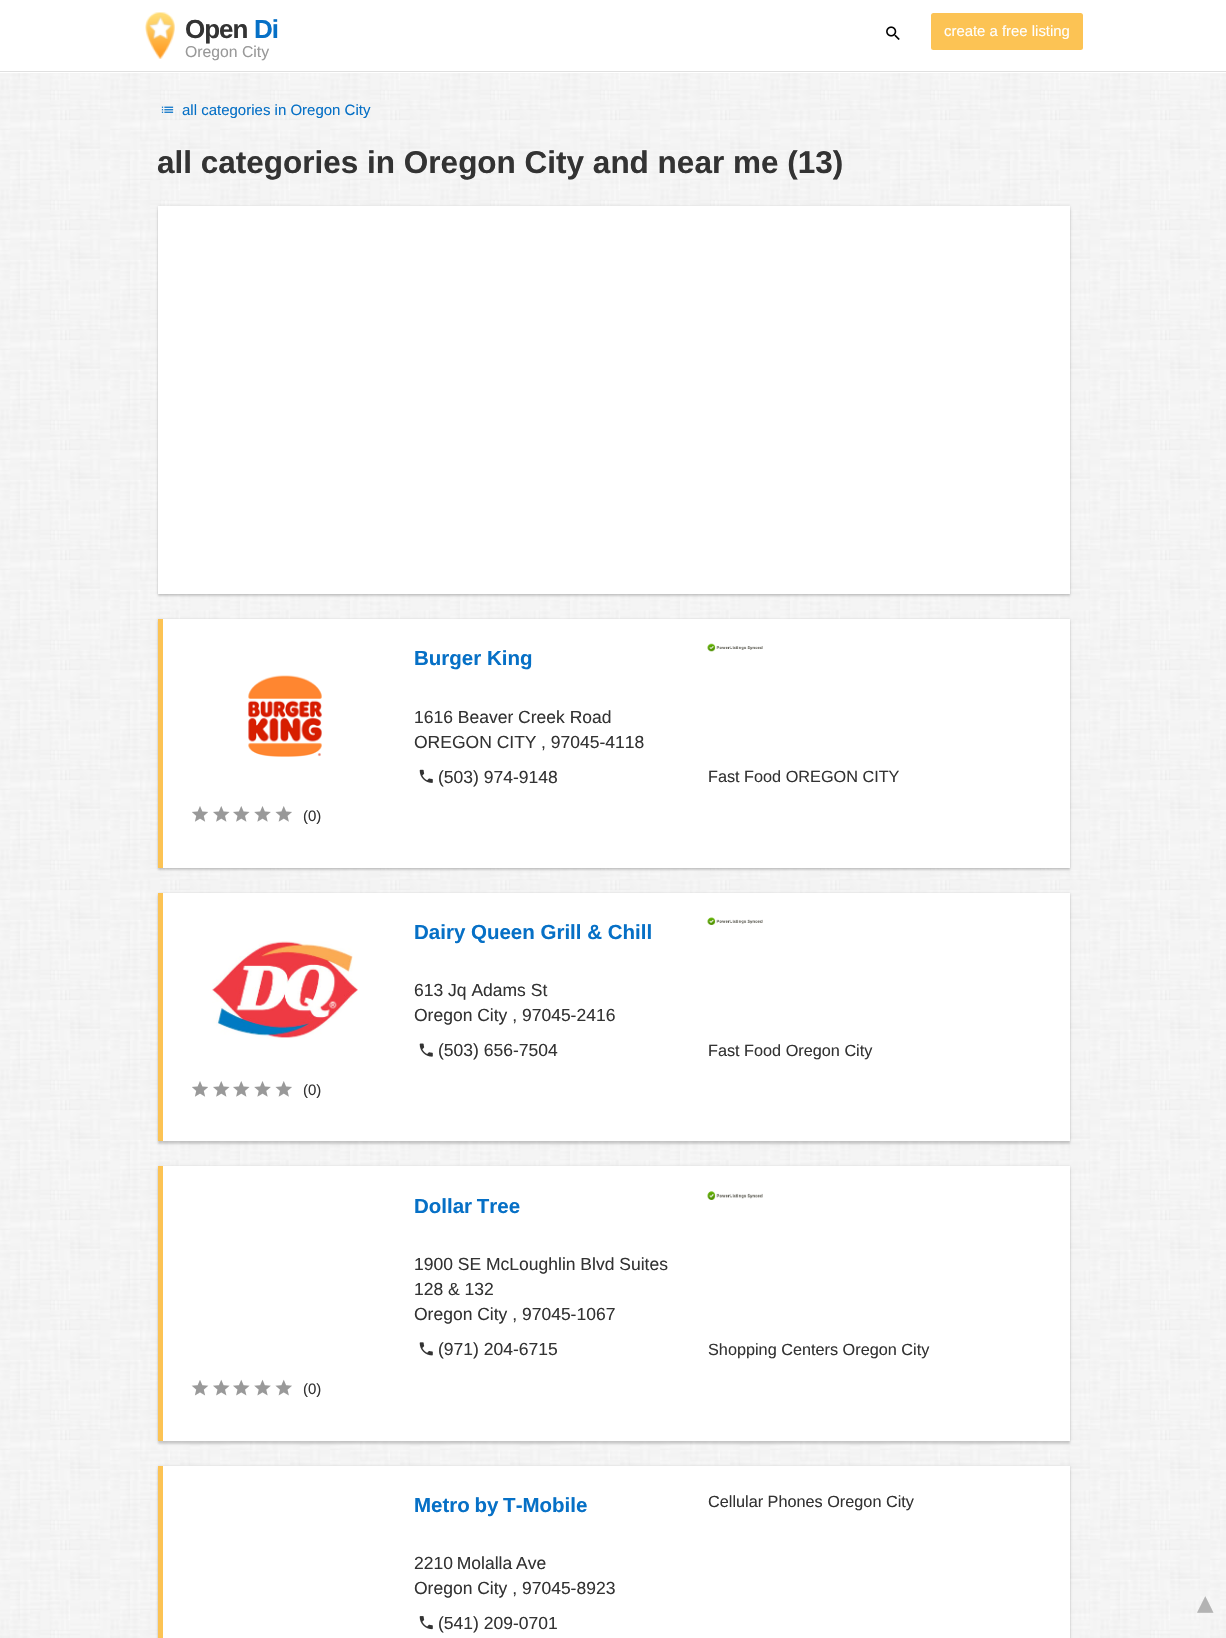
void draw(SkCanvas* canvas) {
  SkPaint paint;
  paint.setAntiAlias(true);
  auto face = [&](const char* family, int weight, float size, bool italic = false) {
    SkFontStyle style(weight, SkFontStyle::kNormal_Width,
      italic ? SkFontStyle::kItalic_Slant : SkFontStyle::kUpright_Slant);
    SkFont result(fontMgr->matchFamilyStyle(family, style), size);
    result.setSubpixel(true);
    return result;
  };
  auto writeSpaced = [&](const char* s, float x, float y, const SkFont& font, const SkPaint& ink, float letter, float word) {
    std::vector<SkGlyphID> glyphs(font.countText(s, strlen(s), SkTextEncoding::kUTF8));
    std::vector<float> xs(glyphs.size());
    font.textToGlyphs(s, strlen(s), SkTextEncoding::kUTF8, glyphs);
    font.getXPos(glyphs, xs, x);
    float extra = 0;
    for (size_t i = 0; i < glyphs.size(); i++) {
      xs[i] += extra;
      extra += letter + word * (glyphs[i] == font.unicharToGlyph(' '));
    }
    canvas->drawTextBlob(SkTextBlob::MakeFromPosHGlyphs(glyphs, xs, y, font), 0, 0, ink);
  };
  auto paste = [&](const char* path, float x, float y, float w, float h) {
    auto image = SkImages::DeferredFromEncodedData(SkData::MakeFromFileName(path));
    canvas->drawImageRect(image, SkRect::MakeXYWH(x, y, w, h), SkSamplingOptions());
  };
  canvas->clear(0xffffffff);
  paste("img/1.png", 0, 73, 1226, 1565);
  paint.setColor(0xffe0e0e0);
  canvas->drawRect(SkRect::MakeXYWH(0, 71, 1226, 1), paint);
  paste("img/2.png", 145, 12, 30, 47);
  paste("img/3.png", 886, 26, 14, 14);
  paint.setColor(0xfffcc354);
  canvas->drawRoundRect(SkRect::MakeXYWH(931, 13, 152, 37), 2.5f, 2.5f, paint);
  paste("img/4.png", 161, 106, 13, 7);
  paint.setColor(0x1f000000);
  paint.setMaskFilter(SkMaskFilter::MakeBlur(kNormal_SkBlurStyle, 1));
  canvas->drawRect(SkRect::MakeXYWH(158, 206, 912, 388), paint);
  paint.setMaskFilter(nullptr);
  paint.setColor(0x29000000);
  paint.setMaskFilter(SkMaskFilter::MakeBlur(kNormal_SkBlurStyle, 1));
  canvas->drawRect(SkRect::MakeXYWH(158, 209, 912, 387), paint);
  paint.setMaskFilter(nullptr);
  paint.setColor(0xffffffff);
  canvas->drawRect(SkRect::MakeXYWH(158, 206, 912, 388), paint);
  paint.setColor(0x1f000000);
  paint.setMaskFilter(SkMaskFilter::MakeBlur(kNormal_SkBlurStyle, 1));
  canvas->drawRect(SkRect::MakeXYWH(158, 619, 912, 249), paint);
  paint.setMaskFilter(nullptr);
  paint.setColor(0x29000000);
  paint.setMaskFilter(SkMaskFilter::MakeBlur(kNormal_SkBlurStyle, 1));
  canvas->drawRect(SkRect::MakeXYWH(158, 621, 912, 249), paint);
  paint.setMaskFilter(nullptr);
  paint.setColor(0xffffffff);
  canvas->drawRect(SkRect::MakeXYWH(163, 619, 907, 249), paint);
  paint.setColor(0xfffcc354);
  canvas->drawRect(SkRect::MakeXYWH(158, 619, 5, 249), paint);
  paste("img/5.png", 248, 675, 74, 82);
  paste("img/6.png", 419, 769, 14, 14);
  paste("img/7.png", 707, 643, 56, 9);
  paste("img/8.png", 192, 806, 16, 16);
  paste("img/9.png", 213, 806, 17, 16);
  paste("img/9.png", 233, 806, 17, 16);
  paste("img/10.png", 254, 806, 17, 16);
  paste("img/11.png", 275, 806, 17, 16);
  paint.setColor(0x1f000000);
  paint.setMaskFilter(SkMaskFilter::MakeBlur(kNormal_SkBlurStyle, 1));
  canvas->drawRect(SkRect::MakeXYWH(158, 893, 912, 248), paint);
  paint.setMaskFilter(nullptr);
  paint.setColor(0x29000000);
  paint.setMaskFilter(SkMaskFilter::MakeBlur(kNormal_SkBlurStyle, 1));
  canvas->drawRect(SkRect::MakeXYWH(158, 895, 912, 249), paint);
  paint.setMaskFilter(nullptr);
  paint.setColor(0xffffffff);
  canvas->drawRect(SkRect::MakeXYWH(163, 893, 907, 248), paint);
  paint.setColor(0xfffcc354);
  canvas->drawRect(SkRect::MakeXYWH(158, 893, 5, 248), paint);
  paste("img/12.png", 212, 941, 146, 98);
  paste("img/13.png", 419, 1043, 14, 14);
  paste("img/14.png", 707, 917, 56, 8);
  paste("img/8.png", 192, 1081, 16, 16);
  paste("img/9.png", 213, 1081, 17, 16);
  paste("img/9.png", 233, 1081, 17, 16);
  paste("img/10.png", 254, 1081, 17, 16);
  paste("img/11.png", 275, 1081, 17, 16);
  paint.setColor(0x1f000000);
  paint.setMaskFilter(SkMaskFilter::MakeBlur(kNormal_SkBlurStyle, 1));
  canvas->drawRect(SkRect::MakeXYWH(158, 1166, 912, 275), paint);
  paint.setMaskFilter(nullptr);
  paint.setColor(0x29000000);
  paint.setMaskFilter(SkMaskFilter::MakeBlur(kNormal_SkBlurStyle, 1));
  canvas->drawRect(SkRect::MakeXYWH(158, 1169, 912, 275), paint);
  paint.setMaskFilter(nullptr);
  paint.setColor(0xffffffff);
  canvas->drawRect(SkRect::MakeXYWH(163, 1166, 907, 275), paint);
  paint.setColor(0xfffcc354);
  canvas->drawRect(SkRect::MakeXYWH(158, 1166, 5, 275), paint);
  paste("img/15.png", 419, 1342, 14, 14);
  paste("img/16.png", 707, 1191, 56, 9);
  paste("img/17.png", 191, 1380, 18, 16);
  paste("img/18.png", 213, 1379, 17, 17);
  paste("img/18.png", 233, 1379, 17, 17);
  paste("img/19.png", 254, 1379, 17, 17);
  paste("img/20.png", 275, 1379, 17, 17);
  paint.setColor(0x1f000000);
  paint.setMaskFilter(SkMaskFilter::MakeBlur(kNormal_SkBlurStyle, 1));
  canvas->drawRect(SkRect::MakeXYWH(158, 1466, 912, 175), paint);
  paint.setMaskFilter(nullptr);
  paint.setColor(0x29000000);
  paint.setMaskFilter(SkMaskFilter::MakeBlur(kNormal_SkBlurStyle, 1));
  canvas->drawRect(SkRect::MakeXYWH(158, 1469, 912, 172), paint);
  paint.setMaskFilter(nullptr);
  paint.setColor(0xffffffff);
  canvas->drawRect(SkRect::MakeXYWH(163, 1466, 907, 172), paint);
  paint.setColor(0xfffcc354);
  canvas->drawRect(SkRect::MakeXYWH(158, 1466, 5, 172), paint);
  paste("img/21.png", 419, 1616, 14, 14);
  auto f0 = face("Liberation Sans", 700, 26);
  paint.setColor(0xff333333);
  writeSpaced("Open", 185, 38, f0, paint, -1, 0);
  paint.setColor(0xff0670c6);
  writeSpaced("Di", 254, 38, f0, paint, -1, 0);
  auto f1 = face("Liberation Sans", 400, 15.75f);
  paint.setColor(0xff999999);
  canvas->drawString("Oregon City", 185, 57, f1, paint);
  auto f2 = face("Liberation Sans", 400, 14.9f);
  paint.setColor(0xffffffff);
  canvas->drawString("create a free listing", 944, 36, f2, paint);
  auto f3 = face("Liberation Sans", 400, 15);
  paint.setColor(0xff0670c6);
  canvas->drawString("all categories in Oregon City", 182, 115, f3, paint);
  auto f4 = face("Liberation Sans", 700, 31.5f);
  paint.setColor(0xff333333);
  canvas->drawString("all categories in Oregon City and near me (13)", 157, 173, f4, paint);
  auto f5 = face("Liberation Sans", 700, 20.5f);
  paint.setColor(0xff0670c6);
  canvas->drawString("Burger King", 414, 665, f5, paint);
  auto f6 = face("Liberation Sans", 400, 17.5f);
  paint.setColor(0xff333333);
  {
    const struct { const char* s; float x, y; } items[] = {
      {"1616 Beaver Creek Road", 414, 723},
      {"OREGON CITY", 414, 748},
      {", 97045-4118", 541, 748},
      {"(503) 974-9148", 438, 783},
    };
    for (auto [s, x, y] : items) {
      canvas->drawString(s, x, y, f6, paint);
    }
  }
  auto f7 = face("Liberation Sans", 400, 16.25f);
  canvas->drawString("Fast Food OREGON CITY", 708, 782, f7, paint);
  canvas->drawString("(0)", 303, 821, f3, paint);
  paint.setColor(0xff0670c6);
  canvas->drawString("Dairy Queen Grill & Chill", 414, 939, f5, paint);
  paint.setColor(0xff333333);
  {
    const struct { const char* s; float x, y; } items[] = {
      {"613 Jq Adams St", 414, 996},
      {"Oregon City , 97045-2416", 414, 1021},
      {"(503) 656-7504", 438, 1056},
    };
    for (auto [s, x, y] : items) {
      canvas->drawString(s, x, y, f6, paint);
    }
  }
  canvas->drawString("Fast Food Oregon City", 708, 1056, f7, paint);
  canvas->drawString("(0)", 303, 1095, f3, paint);
  paint.setColor(0xff0670c6);
  writeSpaced("Dollar Tree", 414, 1213, f5, paint, 0, -1);
  paint.setColor(0xff333333);
  {
    const struct { const char* s; float x, y; } items[] = {
      {"1900 SE McLoughlin Blvd Suites", 414, 1270},
      {"128 & 132", 414, 1295},
      {"Oregon City , 97045-1067", 414, 1320},
      {"(971) 204-6715", 438, 1355},
    };
    for (auto [s, x, y] : items) {
      canvas->drawString(s, x, y, f6, paint);
    }
  }
  canvas->drawString("Shopping Centers Oregon City", 708, 1355, f7, paint);
  canvas->drawString("(0)", 303, 1394, f3, paint);
  paint.setColor(0xff0670c6);
  writeSpaced("Metro by T-Mobile", 414, 1512, f5, paint, 0, -1);
  paint.setColor(0xff333333);
  writeSpaced("2210 Molalla Ave", 414, 1569, f6, paint, 0, -1);
  canvas->drawString("Oregon City , 97045-8923", 414, 1594, f6, paint);
  canvas->drawString("(541) 209-0701", 438, 1629, f6, paint);
  canvas->drawString("Cellular Phones Oregon City", 708, 1507, f7, paint);
  auto f8 = face("DejaVu Sans", 400, 33);
  paint.setColor(0xffb3b3b3);
  canvas->drawString("▴", 1197, 1613, f8, paint);
}
